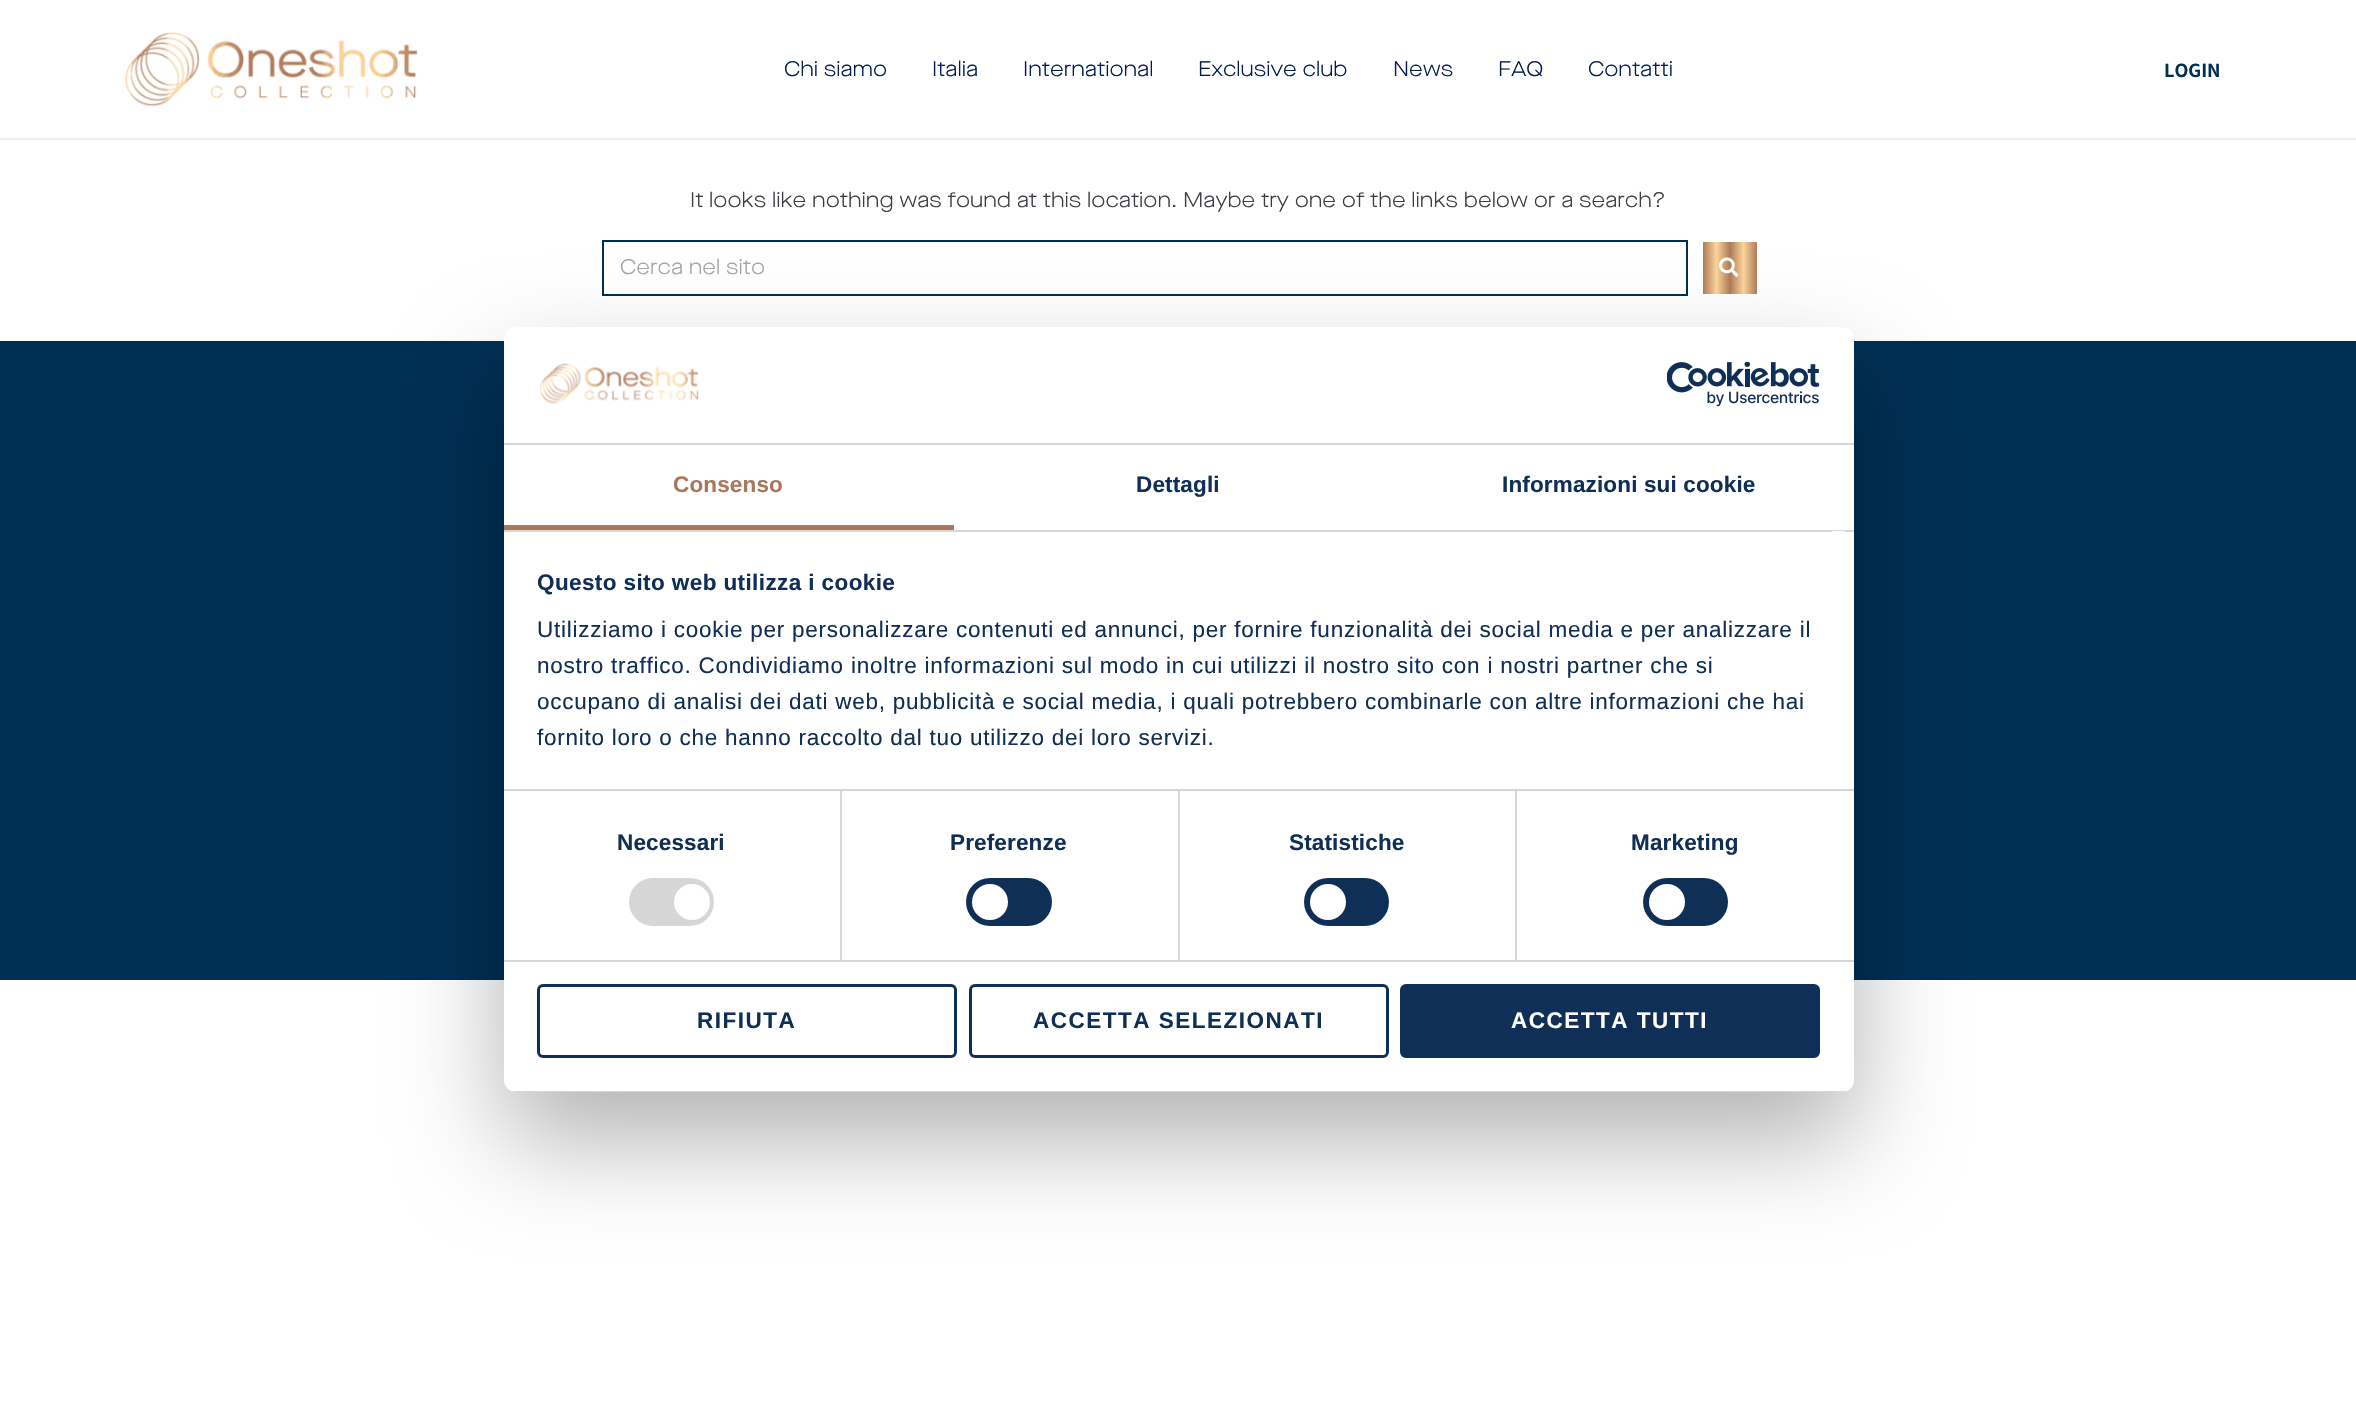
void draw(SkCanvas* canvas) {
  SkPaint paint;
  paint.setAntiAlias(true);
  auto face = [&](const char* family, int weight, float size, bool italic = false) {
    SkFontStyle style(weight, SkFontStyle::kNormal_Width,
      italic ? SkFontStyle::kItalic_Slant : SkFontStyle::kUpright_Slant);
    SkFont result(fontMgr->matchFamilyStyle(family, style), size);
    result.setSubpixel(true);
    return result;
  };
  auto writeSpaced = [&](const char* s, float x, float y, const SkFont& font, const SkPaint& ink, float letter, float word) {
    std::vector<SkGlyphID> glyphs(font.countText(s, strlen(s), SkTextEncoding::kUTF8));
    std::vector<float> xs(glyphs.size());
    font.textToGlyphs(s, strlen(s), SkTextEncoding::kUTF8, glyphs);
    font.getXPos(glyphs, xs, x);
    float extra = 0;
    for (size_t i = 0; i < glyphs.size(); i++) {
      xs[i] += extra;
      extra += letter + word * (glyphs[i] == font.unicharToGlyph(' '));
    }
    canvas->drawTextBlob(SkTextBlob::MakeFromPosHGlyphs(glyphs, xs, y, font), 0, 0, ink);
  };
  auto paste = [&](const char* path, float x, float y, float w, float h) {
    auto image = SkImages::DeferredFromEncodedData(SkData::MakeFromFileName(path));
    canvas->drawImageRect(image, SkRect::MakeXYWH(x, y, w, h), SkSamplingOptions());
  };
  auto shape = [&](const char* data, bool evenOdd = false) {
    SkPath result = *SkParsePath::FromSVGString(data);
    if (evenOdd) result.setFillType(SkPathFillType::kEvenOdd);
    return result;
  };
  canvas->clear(0xffffffff);
  paint.setColor(0xffededed);
  canvas->drawRect(SkRect::MakeXYWH(0, 138, 2356, 2), paint);
  paste("img/1.png", 124, 32, 294, 75);
  paint.setStroke(true);
  paint.setStrokeWidth(2);
  paint.setColor(0xff002f54);
  canvas->drawRect(SkRect::MakeXYWH(603, 241, 1084, 54), paint);
  paint.setStroke(false);
  {
    const SkColor colors[] = {0xffaf7b5a, 0xfffcd59a, 0xffaf7b5a, 0xfffcd59a, 0xffaf7b5a};
    const float stops[] = {0, 0.25f, 0.5f, 0.75f, 1};
    const SkPoint ends[] = {{1703, 268}, {1757, 268}};
    paint.setShader(SkGradientShader::MakeLinear(ends, colors, stops, 5, SkTileMode::kClamp));
    paint.setAlpha(255);
  }
  canvas->drawRect(SkRect::MakeXYWH(1703, 242, 54, 52), paint);
  paste("img/2.png", 1719, 257, 20, 20);
  paint.setShader(nullptr);
  paint.setColor(0xff002f54);
  canvas->drawRect(SkRect::MakeXYWH(0, 341, 2356, 639), paint);
  paint.setColor(0x4d000000);
  paint.setMaskFilter(SkMaskFilter::MakeBlur(kNormal_SkBlurStyle, 51));
  canvas->drawRoundRect(SkRect::MakeXYWH(504, 375, 1350, 765), 12, 12, paint);
  paint.setMaskFilter(nullptr);
  paint.setColor(0xffffffff);
  canvas->drawRoundRect(SkRect::MakeXYWH(504, 327, 1350, 765), 12, 12, paint);
  paint.setColor(0xffd6d6d6);
  canvas->drawRect(SkRect::MakeXYWH(504, 443, 1350, 2), paint);
  paste("img/3.png", 540, 363, 159, 41);
  paste("img/4.png", 1667, 362, 153, 45);
  {
    const struct { float x, y, w, h; SkColor color; } items[] = {
      {504, 530, 1350, 2, 0xffd6d6d6},
      {504, 525, 450, 5, 0xffa8775c},
      {504, 789, 1350, 2, 0xffd6d6d6},
      {1832, 531, 13, 1, 0xffffffff},
      {504, 960, 1350, 2, 0xffd6d6d6},
      {840, 791, 2, 169, 0xffd6d6d6},
    };
    for (auto [x, y, w, h, color] : items) {
      paint.setColor(color);
      canvas->drawRect(SkRect::MakeXYWH(x, y, w, h), paint);
    }
  }
  canvas->drawRoundRect(SkRect::MakeXYWH(629, 878, 85, 48), 24, 24, paint);
  paint.setColor(0xffffffff);
  canvas->drawCircle(692, 902, 18, paint);
  paint.setColor(0xffd6d6d6);
  canvas->drawRect(SkRect::MakeXYWH(1178, 791, 2, 169), paint);
  paint.setColor(0xff102f56);
  canvas->drawRoundRect(SkRect::MakeXYWH(966, 878, 86, 48), 24, 24, paint);
  paint.setColor(0xffffffff);
  canvas->drawCircle(990, 902, 18, paint);
  paint.setColor(0xffd6d6d6);
  canvas->drawRect(SkRect::MakeXYWH(1515, 791, 2, 169), paint);
  paint.setColor(0xff102f56);
  canvas->drawRoundRect(SkRect::MakeXYWH(1304, 878, 85, 48), 24, 24, paint);
  paint.setColor(0xffffffff);
  canvas->drawCircle(1328, 902, 18, paint);
  paint.setColor(0xff102f56);
  canvas->drawRoundRect(SkRect::MakeXYWH(1643, 878, 85, 48), 24, 24, paint);
  paint.setColor(0xffffffff);
  canvas->drawCircle(1667, 902, 18, paint);
  canvas->save();
  canvas->clipPath(shape("M516 327H1842C1848.5 327 1854 332.5 1854 339V1080C1854 1086.5 1848.5 1092 1842 1092H516C509.5 1092 504 1086.5 504 1080V339C504 332.5 509.5 327 516 327Z"), true);
  paint.setColor(0xffd6d6d6);
  canvas->drawRect(SkRect::MakeXYWH(504, 1091, 1350, 1), paint);
  canvas->restore();
  paint.setStroke(true);
  paint.setStrokeWidth(3);
  paint.setColor(0xff102f56);
  canvas->drawRoundRect(SkRect::MakeXYWH(538.5f, 985.5f, 417, 71), 4.5f, 4.5f, paint);
  canvas->drawRoundRect(SkRect::MakeXYWH(970.5f, 985.5f, 417, 71), 4.5f, 4.5f, paint);
  paint.setStroke(false);
  canvas->drawRoundRect(SkRect::MakeXYWH(1401.5f, 985.5f, 417, 71), 4.5f, 4.5f, paint);
  paint.setStroke(true);
  canvas->drawRoundRect(SkRect::MakeXYWH(1401.5f, 985.5f, 417, 71), 4.5f, 4.5f, paint);
  auto f0 = face("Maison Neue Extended", 300, 21);
  paint.setStroke(false);
  paint.setColor(0xff011b4e);
  {
    const struct { const char* s; float x, y; } items[] = {
      {"Chi siamo", 784, 76},
      {"Italia", 932, 76},
      {"International", 1023, 76},
      {"Exclusive club", 1198, 76},
      {"News", 1393, 76},
      {"FAQ", 1498, 76},
      {"Contatti", 1588, 76},
    };
    for (auto [s, x, y] : items) {
      canvas->drawString(s, x, y, f0, paint);
    }
  }
  auto f1 = face("Noto Sans JP", 700, 18);
  paint.setColor(0xff002f54);
  canvas->drawString("LOGIN", 2164, 77, f1, paint);
  paint.setColor(0xff3b3d42);
  canvas->drawString("It looks like nothing was found at this location. Maybe try one of the links below or a search?", 690, 207, f0, paint);
  paint.setColor(0xffa1a2a4);
  canvas->drawString("Cerca nel sito", 620, 274, f0, paint);
  auto f2 = face("Liberation Sans", 700, 22.5f);
  paint.setColor(0xffa8775c);
  writeSpaced("Consenso", 673, 492, f2, paint, 0.15f, 0);
  paint.setColor(0xff102f56);
  writeSpaced("Dettagli", 1136, 492, f2, paint, 0.15f, 0);
  writeSpaced("Informazioni sui cookie", 1502, 492, f2, paint, 0.15f, 0);
  writeSpaced("Questo sito web utilizza i cookie", 537, 590, f2, paint, 0.4f, 0);
  auto f3 = face("Liberation Sans", 400, 22.5f);
  {
    const struct { const char* s; float x, y; } items[] = {
      {"Utilizziamo i cookie per personalizzare contenuti ed annunci, per fornire funzionalità dei social media e per analizzare il", 537, 637},
      {"nostro traffico. Condividiamo inoltre informazioni sul modo in cui utilizzi il nostro sito con i nostri partner che si", 537, 673},
      {"occupano di analisi dei dati web, pubblicità e social media, i quali potrebbero combinarle con altre informazioni che hai", 537, 709},
      {"fornito loro o che hanno raccolto dal tuo utilizzo dei loro servizi.", 537, 745},
    };
    for (auto [s, x, y] : items) {
      writeSpaced(s, x, y, f3, paint, 0.75f, 0);
    }
  }
  {
    const struct { const char* s; float x, y; } items[] = {
      {"Necessari", 617, 850},
      {"Preferenze", 950, 850},
      {"Statistiche", 1289, 850},
      {"Marketing", 1631, 850},
    };
    for (auto [s, x, y] : items) {
      writeSpaced(s, x, y, f2, paint, 0.15f, 0);
    }
  }
  writeSpaced("RIFIUTA", 697, 1028, f2, paint, 1.5f, 0);
  writeSpaced("ACCETTA SELEZIONATI", 1033, 1028, f2, paint, 1.5f, 0);
  paint.setColor(0xffffffff);
  writeSpaced("ACCETTA TUTTI", 1511, 1028, f2, paint, 1.5f, 0);
}
